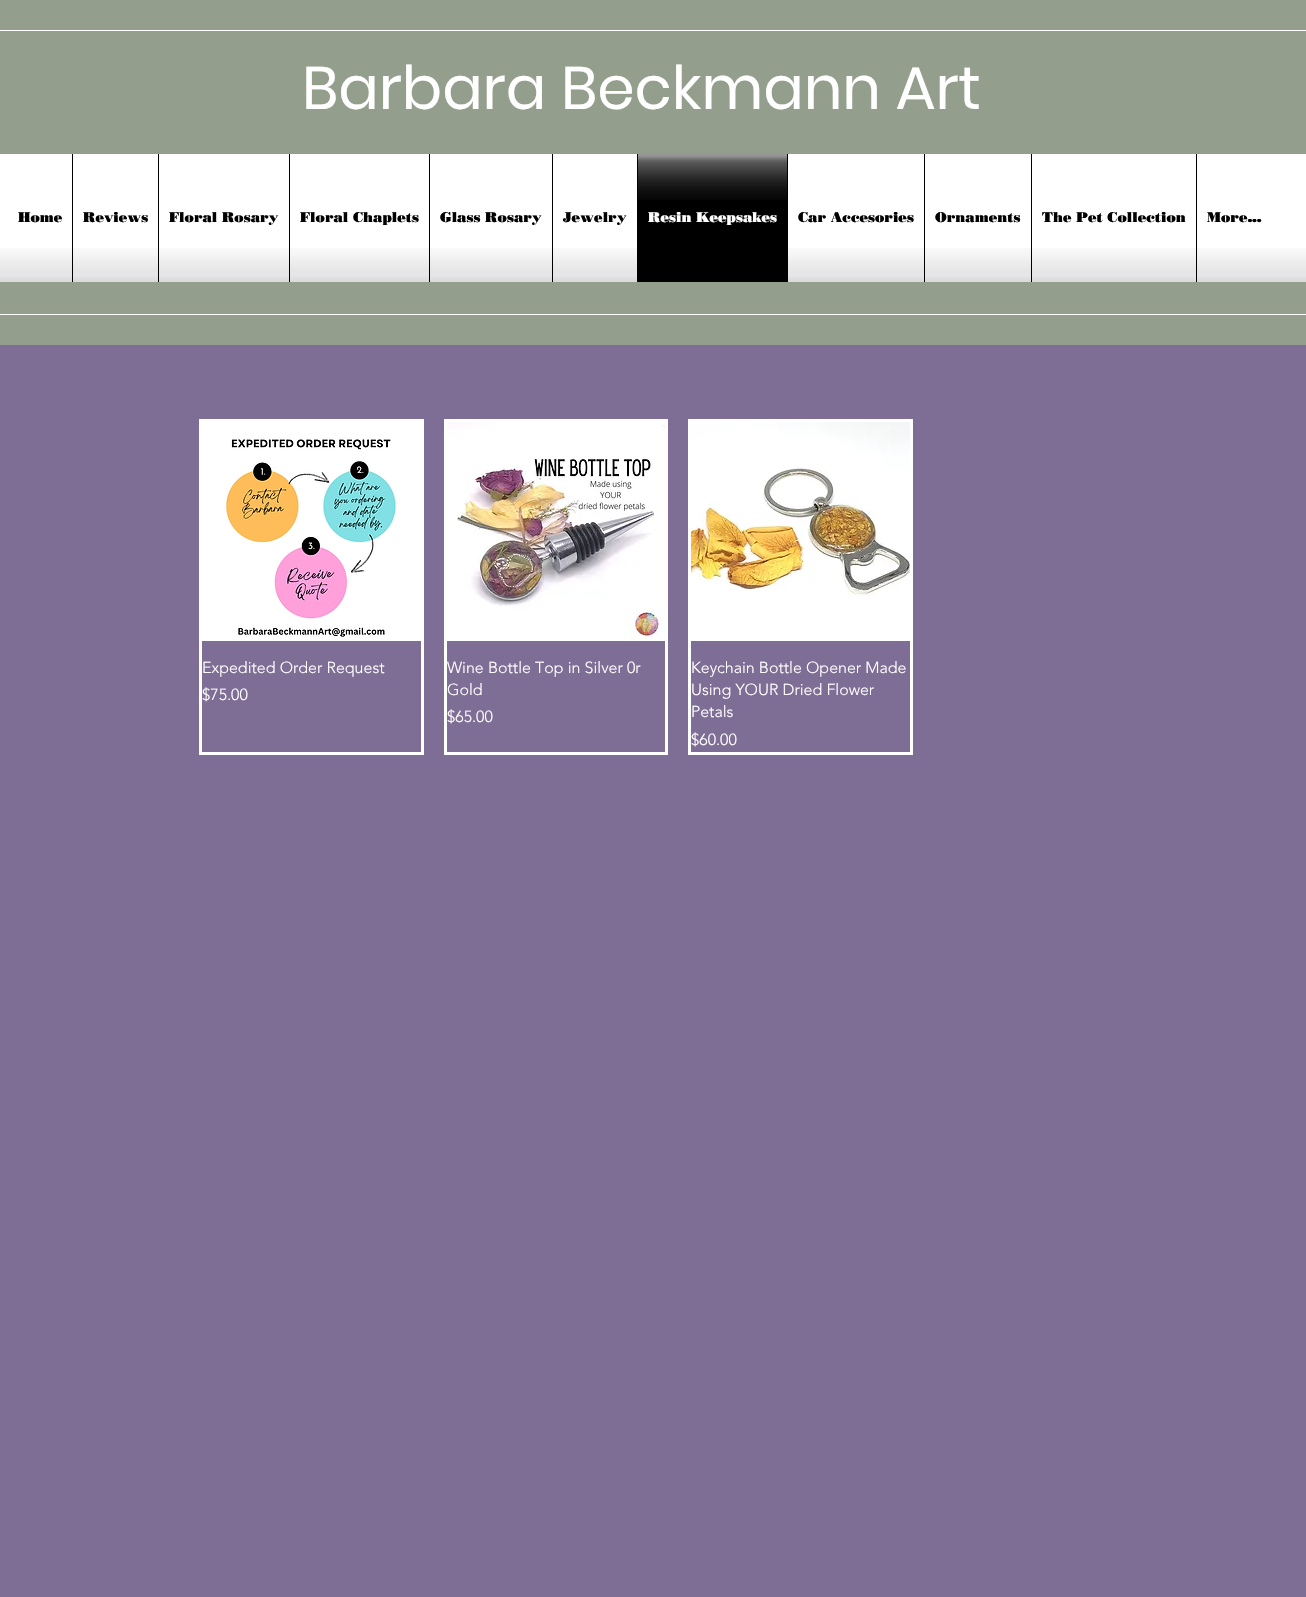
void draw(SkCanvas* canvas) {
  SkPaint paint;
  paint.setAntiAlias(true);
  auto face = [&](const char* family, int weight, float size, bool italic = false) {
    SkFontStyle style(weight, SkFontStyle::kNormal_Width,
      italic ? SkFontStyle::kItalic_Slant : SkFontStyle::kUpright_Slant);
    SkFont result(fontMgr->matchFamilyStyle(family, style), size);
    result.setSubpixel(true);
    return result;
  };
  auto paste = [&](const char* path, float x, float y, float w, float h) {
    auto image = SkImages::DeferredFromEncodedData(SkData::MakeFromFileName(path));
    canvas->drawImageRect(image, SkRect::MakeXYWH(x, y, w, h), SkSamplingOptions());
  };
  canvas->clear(0xff7e6d94);
  {
    const struct { float x, y, w, h; SkColor color; } items[] = {
      {0, 0, 1306, 345, 0xff939e8c},
      {0, 30, 1306, 1, 0xffffffff},
      {0, 314, 1306, 1, 0xffffffff},
      {0, 154, 1306, 128, 0xffffffff},
    };
    for (auto [x, y, w, h, color] : items) {
      paint.setColor(color);
      canvas->drawRect(SkRect::MakeXYWH(x, y, w, h), paint);
    }
  }
  paste("img/1.png", 0, 248, 1306, 34);
  canvas->drawRect(SkRect::MakeXYWH(8, 248, 64, 34), paint);
  paste("img/2.png", 8, 248, 64, 34);
  canvas->drawRect(SkRect::MakeXYWH(73, 248, 85, 34), paint);
  paint.setColor(0xff000000);
  canvas->drawRect(SkRect::MakeXYWH(72, 154, 1, 128), paint);
  paste("img/3.png", 73, 248, 85, 34);
  paint.setColor(0xffffffff);
  canvas->drawRect(SkRect::MakeXYWH(159, 248, 130, 34), paint);
  paint.setColor(0xff000000);
  canvas->drawRect(SkRect::MakeXYWH(158, 154, 1, 128), paint);
  paste("img/4.png", 159, 248, 130, 34);
  paint.setColor(0xffffffff);
  canvas->drawRect(SkRect::MakeXYWH(290, 248, 139, 34), paint);
  paint.setColor(0xff000000);
  canvas->drawRect(SkRect::MakeXYWH(289, 154, 1, 128), paint);
  paste("img/5.png", 290, 248, 139, 34);
  paint.setColor(0xffffffff);
  canvas->drawRect(SkRect::MakeXYWH(430, 248, 122, 34), paint);
  paint.setColor(0xff000000);
  canvas->drawRect(SkRect::MakeXYWH(429, 154, 1, 128), paint);
  paste("img/6.png", 430, 248, 122, 34);
  paint.setColor(0xffffffff);
  canvas->drawRect(SkRect::MakeXYWH(553, 248, 84, 34), paint);
  paint.setColor(0xff000000);
  canvas->drawRect(SkRect::MakeXYWH(552, 154, 1, 128), paint);
  paste("img/7.png", 553, 248, 84, 34);
  canvas->drawRect(SkRect::MakeXYWH(637, 154, 151, 128), paint);
  paste("img/8.png", 638, 154, 149, 46);
  paint.setColor(0xffffffff);
  canvas->drawRect(SkRect::MakeXYWH(788, 248, 136, 34), paint);
  paste("img/9.png", 788, 248, 136, 34);
  canvas->drawRect(SkRect::MakeXYWH(925, 248, 106, 34), paint);
  paint.setColor(0xff000000);
  canvas->drawRect(SkRect::MakeXYWH(924, 154, 1, 128), paint);
  paste("img/10.png", 925, 248, 106, 34);
  paint.setColor(0xffffffff);
  canvas->drawRect(SkRect::MakeXYWH(1032, 248, 164, 34), paint);
  paint.setColor(0xff000000);
  canvas->drawRect(SkRect::MakeXYWH(1031, 154, 1, 128), paint);
  paste("img/11.png", 1032, 248, 164, 34);
  paint.setColor(0xffffffff);
  canvas->drawRect(SkRect::MakeXYWH(1197, 248, 74, 34), paint);
  paint.setColor(0xff000000);
  canvas->drawRect(SkRect::MakeXYWH(1196, 154, 1, 128), paint);
  paste("img/12.png", 1197, 248, 74, 34);
  paint.setStroke(true);
  paint.setStrokeWidth(3);
  paint.setColor(0xffffffff);
  canvas->drawRect(SkRect::MakeXYWH(200.5f, 420.5f, 222, 333), paint);
  paste("img/13.png", 202, 422, 219, 219);
  canvas->drawRect(SkRect::MakeXYWH(445.5f, 420.5f, 221, 333), paint);
  paste("img/14.png", 447, 422, 218, 219);
  canvas->drawRect(SkRect::MakeXYWH(689.5f, 420.5f, 222, 333), paint);
  paste("img/15.png", 691, 422, 219, 219);
  auto f0 = face("Poppins", 400, 60);
  paint.setStroke(false);
  canvas->drawString("Barbara Beckmann Art", 302, 109, f0, paint);
  auto f1 = face("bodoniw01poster", 900, 14);
  paint.setColor(0xff000000);
  {
    const struct { const char* s; float x, y; } items[] = {
      {"Home", 18, 222},
      {"Reviews", 83, 222},
      {"Floral Rosary", 169, 222},
      {"Floral Chaplets", 300, 222},
      {"Glass Rosary", 440, 222},
      {"Jewelry", 563, 222},
    };
    for (auto [s, x, y] : items) {
      canvas->drawString(s, x, y, f1, paint);
    }
  }
  paint.setColor(0xffffffff);
  canvas->drawString("Resin Keepsakes", 648, 222, f1, paint);
  paint.setColor(0xff000000);
  {
    const struct { const char* s; float x, y; } items[] = {
      {"Car Accesories", 798, 222},
      {"Ornaments", 935, 222},
      {"The Pet Collection", 1042, 222},
      {"More...", 1207, 222},
    };
    for (auto [s, x, y] : items) {
      canvas->drawString(s, x, y, f1, paint);
    }
  }
  auto f2 = face("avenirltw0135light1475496", 300, 16);
  paint.setColor(0xffffffff);
  {
    const struct { const char* s; float x, y; } items[] = {
      {"Expedited Order Request", 202, 673},
      {"$75.00", 202, 700},
      {"Wine Bottle Top in Silver 0r", 447, 673},
      {"Gold", 447, 695},
      {"$65.00", 447, 722},
      {"Keychain Bottle Opener Made", 691, 673},
      {"Using YOUR Dried Flower", 691, 695},
      {"Petals", 691, 717},
      {"$60.00", 691, 745},
    };
    for (auto [s, x, y] : items) {
      canvas->drawString(s, x, y, f2, paint);
    }
  }
}
